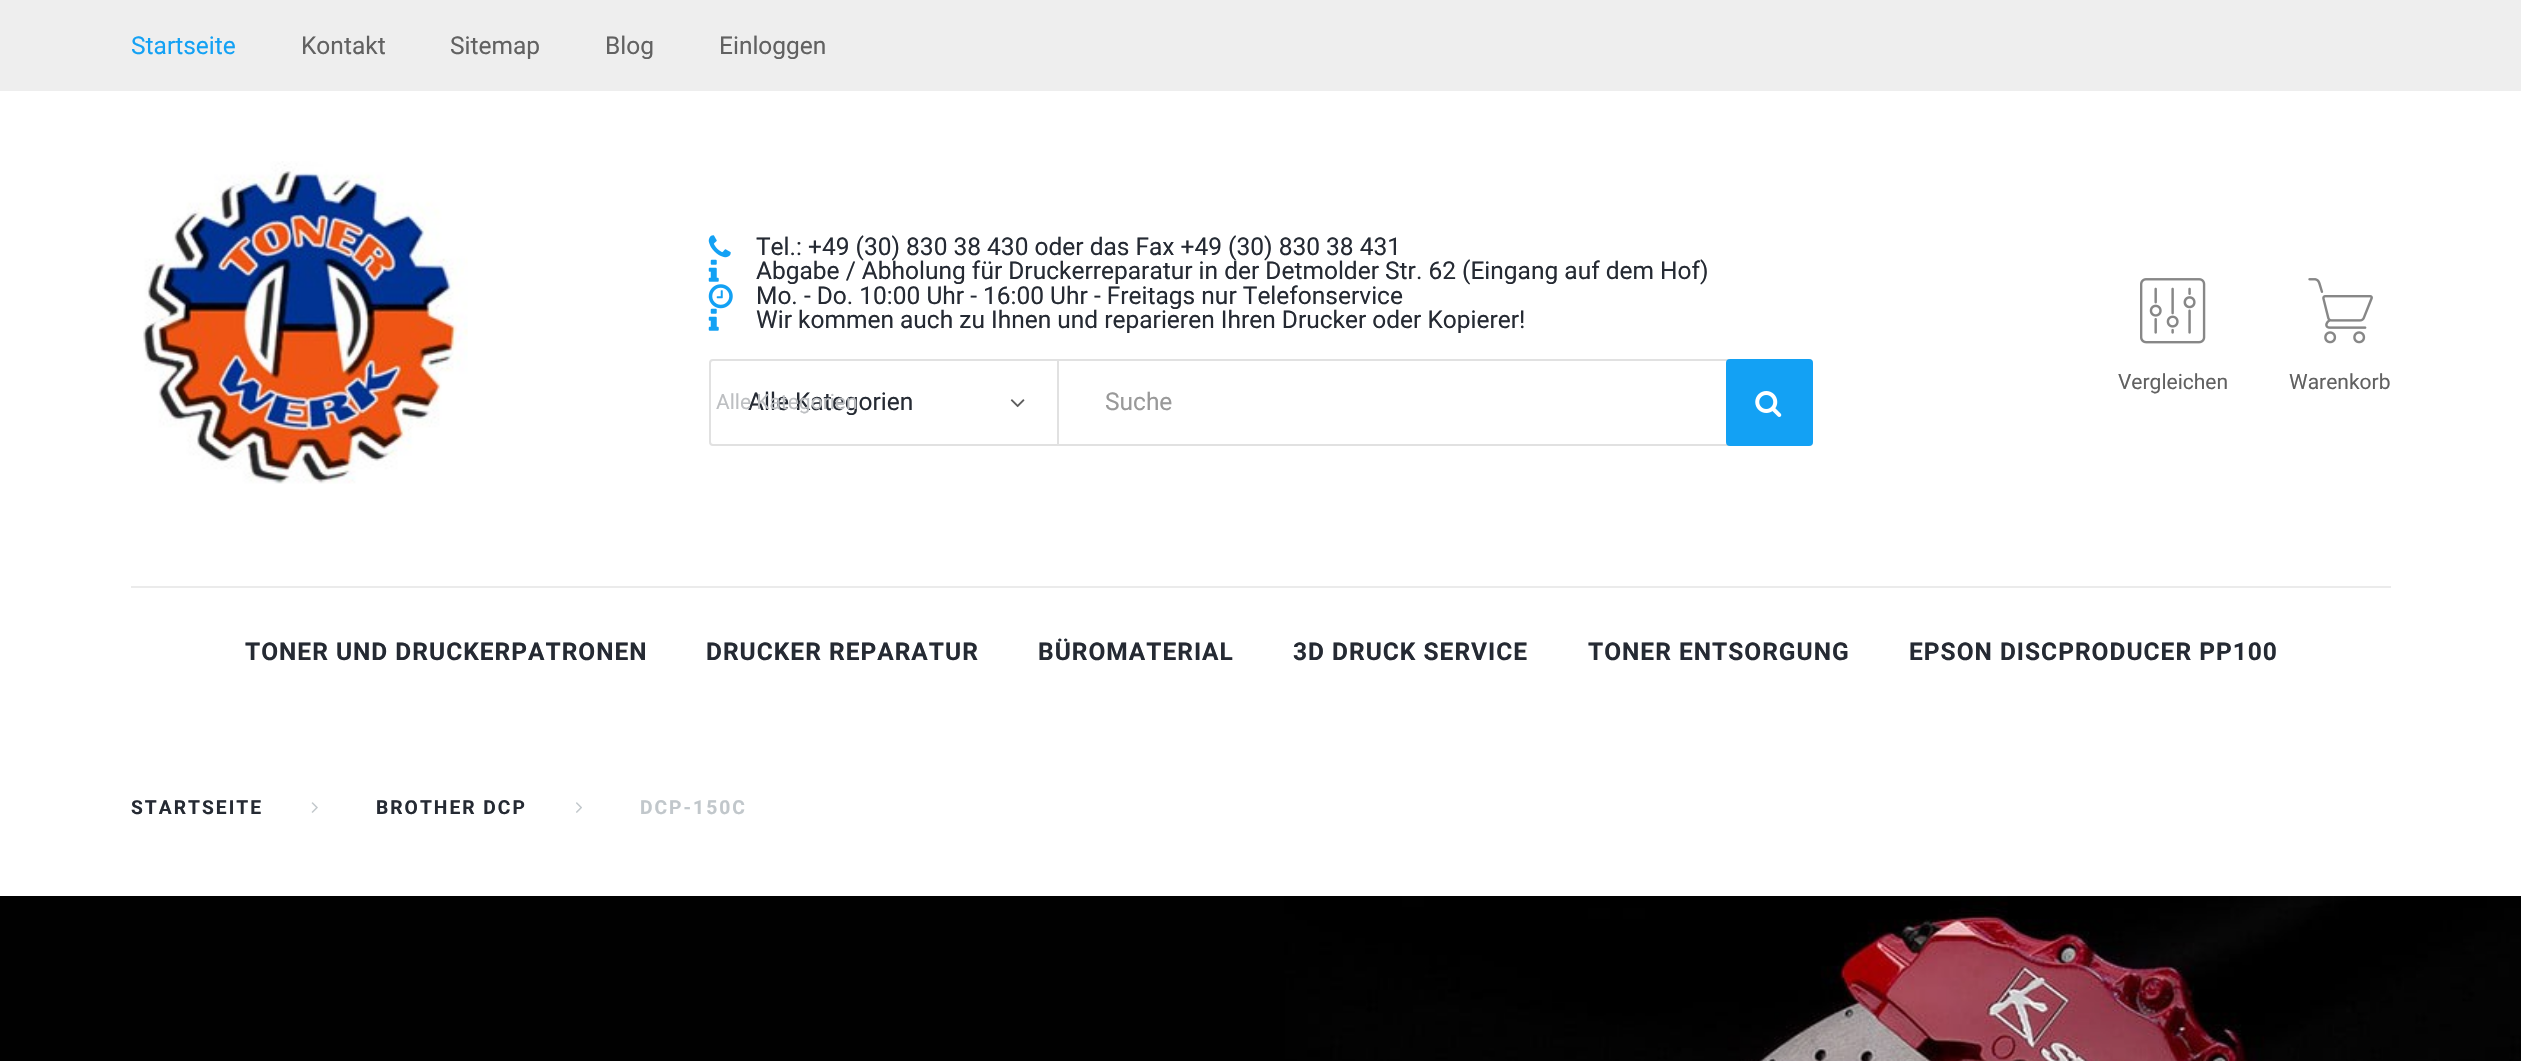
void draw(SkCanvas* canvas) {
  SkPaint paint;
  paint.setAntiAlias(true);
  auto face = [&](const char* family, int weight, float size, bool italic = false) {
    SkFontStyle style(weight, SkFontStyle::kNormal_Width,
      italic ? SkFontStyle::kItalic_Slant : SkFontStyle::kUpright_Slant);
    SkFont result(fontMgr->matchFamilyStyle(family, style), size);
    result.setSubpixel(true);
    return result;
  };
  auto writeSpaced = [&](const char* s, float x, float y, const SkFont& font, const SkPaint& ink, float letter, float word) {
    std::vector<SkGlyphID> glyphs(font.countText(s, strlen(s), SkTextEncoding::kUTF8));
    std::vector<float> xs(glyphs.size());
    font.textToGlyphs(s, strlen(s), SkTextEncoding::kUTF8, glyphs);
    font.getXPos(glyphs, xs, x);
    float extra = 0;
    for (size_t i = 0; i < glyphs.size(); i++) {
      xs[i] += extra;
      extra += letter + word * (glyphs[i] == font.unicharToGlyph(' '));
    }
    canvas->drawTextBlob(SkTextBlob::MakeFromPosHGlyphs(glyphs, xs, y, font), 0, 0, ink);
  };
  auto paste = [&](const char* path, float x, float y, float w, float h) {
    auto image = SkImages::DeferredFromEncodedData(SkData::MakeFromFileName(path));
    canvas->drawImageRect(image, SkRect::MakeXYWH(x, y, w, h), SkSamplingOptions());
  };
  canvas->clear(0xffffffff);
  paint.setColor(0xffeeeeee);
  canvas->drawRect(SkRect::MakeXYWH(0, 0, 2521, 91), paint);
  paste("img/1.png", 143, 161, 325, 323);
  paste("img/2.png", 708, 235, 23, 23);
  paste("img/3.png", 708, 259, 11, 23);
  paste("img/4.png", 708, 284, 25, 25);
  paste("img/5.png", 708, 308, 11, 23);
  paint.setStroke(true);
  paint.setStrokeWidth(2);
  paint.setColor(0xffe1e1e1);
  canvas->drawRoundRect(SkRect::MakeXYWH(710, 360, 1102, 85), 3, 3, paint);
  paint.setStroke(false);
  canvas->drawRect(SkRect::MakeXYWH(1057, 361, 2, 84), paint);
  paste("img/6.png", 1010, 399, 15, 9);
  paint.setColor(0xff13a1f4);
  canvas->drawRoundRect(SkRect::MakeXYWH(1726, 359, 87, 87), 4, 4, paint);
  paste("img/7.png", 1755, 391, 27, 26);
  paste("img/8.png", 2140, 278, 66, 66);
  paste("img/9.png", 2308, 278, 65, 66);
  paint.setColor(0xffebebeb);
  canvas->drawRect(SkRect::MakeXYWH(131, 586, 2260, 2), paint);
  paste("img/10.png", 311, 802, 7, 11);
  paste("img/11.png", 576, 802, 6, 11);
  paste("img/12.png", 0, 896, 2521, 165);
  auto f0 = face("Roboto", 400, 24.5f);
  paint.setColor(0xff13a1f4);
  canvas->drawString("Startseite", 131, 54, f0, paint);
  paint.setColor(0xff616161);
  {
    const struct { const char* s; float x, y; } items[] = {
      {"Kontakt", 301, 54},
      {"Sitemap", 450, 54},
      {"Blog", 605, 54},
      {"Einloggen", 719, 54},
    };
    for (auto [s, x, y] : items) {
      canvas->drawString(s, x, y, f0, paint);
    }
  }
  paint.setColor(0xff252a33);
  {
    const struct { const char* s; float x, y; } items[] = {
      {"Tel.: +49 (30) 830 38 430 oder das Fax +49 (30) 830 38 431", 756, 255},
      {"Abgabe / Abholung für Druckerreparatur in der Detmolder Str. 62 (Eingang auf dem Hof)", 756, 279},
      {"Mo. - Do. 10:00 Uhr - 16:00 Uhr - Freitags nur Telefonservice", 756, 304},
      {"Wir kommen auch zu Ihnen und reparieren Ihren Drucker oder Kopierer!", 756, 328},
      {"Alle Kategorien", 748, 410},
    };
    for (auto [s, x, y] : items) {
      canvas->drawString(s, x, y, f0, paint);
    }
  }
  auto f1 = face("Roboto", 400, 21);
  paint.setColor(0xffbdbfc2);
  canvas->drawString("Alle Kategorien", 716, 409, f1, paint);
  paint.setColor(0xff999999);
  canvas->drawString("Suche", 1105, 410, f0, paint);
  paint.setColor(0xff616161);
  canvas->drawString("Vergleichen", 2118, 389, f1, paint);
  canvas->drawString("Warenkorb", 2289, 389, f1, paint);
  auto f2 = face("Roboto", 700, 24.5f);
  paint.setColor(0xff252a33);
  {
    const struct { const char* s; float x, y; } items[] = {
      {"TONER UND DRUCKERPATRONEN", 245, 660},
      {"DRUCKER REPARATUR", 706, 660},
      {"BÜROMATERIAL", 1038, 660},
      {"3D DRUCK SERVICE", 1293, 660},
      {"TONER ENTSORGUNG", 1588, 660},
      {"EPSON DISCPRODUCER PP100", 1909, 660},
    };
    for (auto [s, x, y] : items) {
      writeSpaced(s, x, y, f2, paint, 1, 0);
    }
  }
  auto f3 = face("Roboto", 700, 19.25f);
  writeSpaced("STARTSEITE", 131, 814, f3, paint, 2, 0);
  writeSpaced("BROTHER DCP", 376, 814, f3, paint, 2, 0);
  paint.setColor(0xffc1c7cb);
  writeSpaced("DCP-150C", 640, 814, f3, paint, 2, 0);
}
